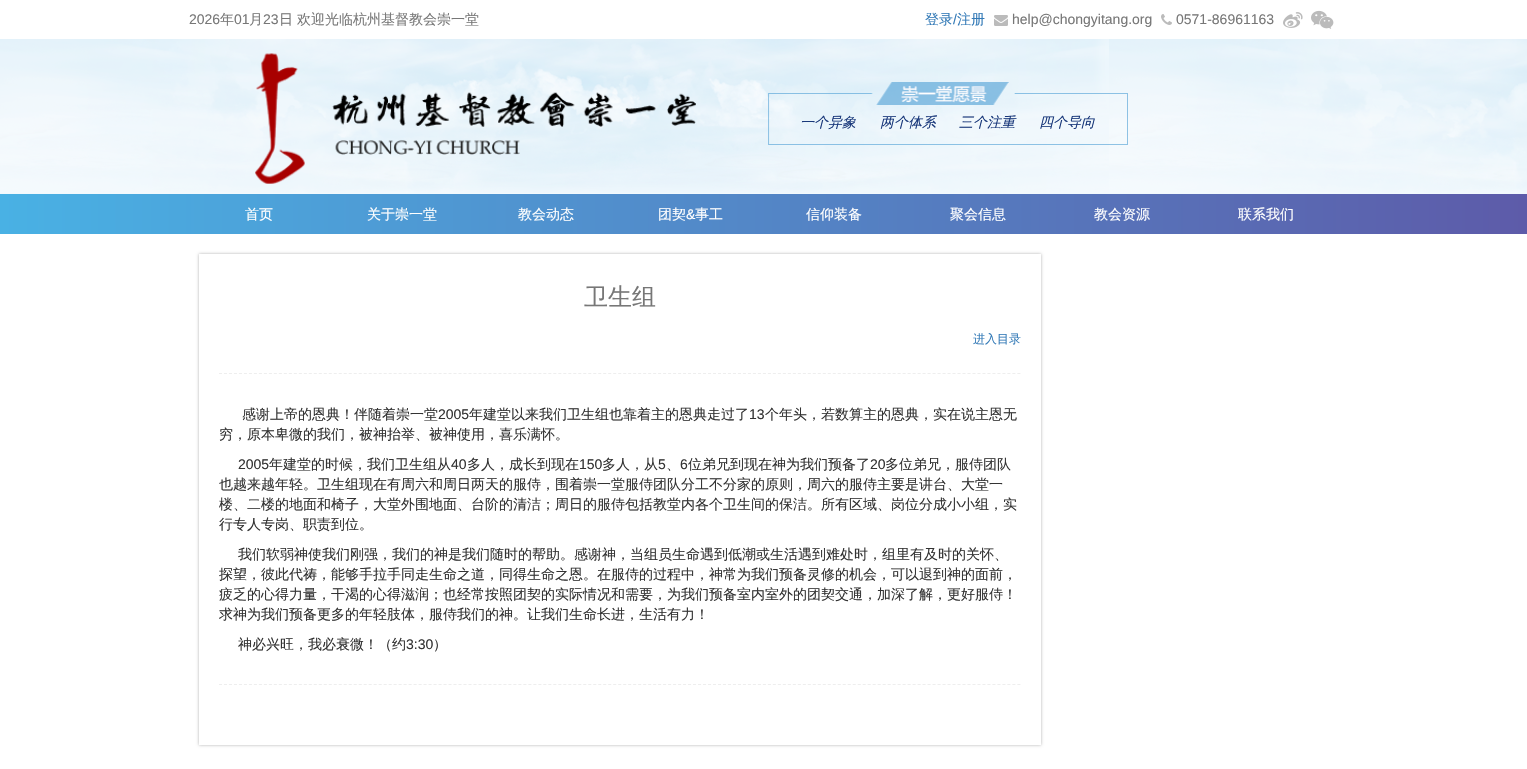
void draw(SkCanvas* canvas) {
  SkPaint paint;
  paint.setAntiAlias(true);
  auto face = [&](const char* family, int weight, float size, bool italic = false) {
    SkFontStyle style(weight, SkFontStyle::kNormal_Width,
      italic ? SkFontStyle::kItalic_Slant : SkFontStyle::kUpright_Slant);
    SkFont result(fontMgr->matchFamilyStyle(family, style), size);
    result.setSubpixel(true);
    return result;
  };
  auto paste = [&](const char* path, float x, float y, float w, float h) {
    auto image = SkImages::DeferredFromEncodedData(SkData::MakeFromFileName(path));
    canvas->drawImageRect(image, SkRect::MakeXYWH(x, y, w, h), SkSamplingOptions());
  };
  auto shape = [&](const char* data, bool evenOdd = false) {
    SkPath result = *SkParsePath::FromSVGString(data);
    if (evenOdd) result.setFillType(SkPathFillType::kEvenOdd);
    return result;
  };
  canvas->clear(0xffffffff);
  paste("img/1.png", 994, 15, 14, 11);
  paste("img/2.png", 1161, 14, 11, 11);
  paste("img/3.png", 1283, 12, 20, 16);
  paste("img/4.png", 1311, 10, 23, 19);
  paint.setColor(0xfff2f9fd);
  canvas->drawRect(SkRect::MakeXYWH(0, 193, 1527, 1), paint);
  paste("img/5.png", 0, 39, 1527, 154);
  paste("img/6.png", 255, 53, 441, 131);
  paste("img/7.png", 768, 82, 360, 63);
  {
    const SkColor colors[] = {0xff49b1e4, 0xff5d5ba9};
    const float stops[] = {0, 1};
    const SkPoint ends[] = {{0, 214}, {1527, 214}};
    paint.setShader(SkGradientShader::MakeLinear(ends, colors, stops, 2, SkTileMode::kClamp));
    paint.setAlpha(255);
  }
  canvas->drawRect(SkRect::MakeXYWH(0, 194, 1527, 40), paint);
  canvas->save();
  canvas->clipPath(shape("M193 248H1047V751H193ZM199 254H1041V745H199Z", true), true);
  paint.setShader(nullptr);
  paint.setColor(0x4d000000);
  paint.setMaskFilter(SkMaskFilter::MakeBlur(kNormal_SkBlurStyle, 1.5f));
  canvas->drawRect(SkRect::MakeXYWH(199, 254, 842, 491), paint);
  paint.setMaskFilter(nullptr);
  canvas->restore();
  paint.setStroke(true);
  paint.setStrokeWidth(1);
  paint.setColor(0xffeeeeee);
  paint.setPathEffect(SkDashPathEffect::Make({{3, 1.99f}}, 0));
  canvas->drawPath(shape("M219 373.5H1021"), paint);
  paint.setPathEffect(nullptr);
  paint.setPathEffect(SkDashPathEffect::Make({{3, 1.99f}}, 0));
  canvas->drawPath(shape("M219 684.5H1021"), paint);
  paint.setPathEffect(nullptr);
  auto f0 = face("Liberation Sans", 400, 14);
  paint.setStroke(false);
  paint.setColor(0xff777777);
  canvas->drawString("2026", 189, 24, f0, paint);
  auto f1 = face("WenQuanYi Zen Hei", 500, 14);
  canvas->drawString("年", 220, 24, f1, paint);
  canvas->drawString("01", 234, 24, f0, paint);
  canvas->drawString("月", 249, 24, f1, paint);
  canvas->drawString("23", 263, 24, f0, paint);
  canvas->drawString("日", 279, 24, f1, paint);
  canvas->drawString("欢迎光临杭州基督教会崇一堂", 297, 24, f1, paint);
  paint.setColor(0xff337ab7);
  canvas->drawString("登录", 925, 24, f1, paint);
  canvas->drawString("/", 953, 24, f0, paint);
  canvas->drawString("注册", 957, 24, f1, paint);
  paint.setColor(0xff777777);
  canvas->drawString("help@chongyitang.org", 1012, 24, f0, paint);
  canvas->drawString("0571-86961163", 1176, 24, f0, paint);
  auto f2 = face("WenQuanYi Zen Hei", 500, 14, true);
  paint.setColor(0xff18377a);
  {
    const struct { const char* s; float x, y; } items[] = {
      {"一个异象", 800, 127},
      {"两个体系", 880, 127},
      {"三个注重", 959, 127},
      {"四个导向", 1039, 127},
    };
    for (auto [s, x, y] : items) {
      canvas->drawString(s, x, y, f2, paint);
    }
  }
  paint.setColor(0xffffffff);
  {
    const struct { const char* s; float x, y; } items[] = {
      {"首页", 245, 219},
      {"关于崇一堂", 367, 219},
      {"教会动态", 518, 219},
      {"团契", 658, 219},
    };
    for (auto [s, x, y] : items) {
      canvas->drawString(s, x, y, f1, paint);
    }
  }
  canvas->drawString("&", 686, 219, f0, paint);
  {
    const struct { const char* s; float x, y; } items[] = {
      {"事工", 695, 219},
      {"信仰装备", 806, 219},
      {"聚会信息", 950, 219},
      {"教会资源", 1094, 219},
      {"联系我们", 1238, 219},
    };
    for (auto [s, x, y] : items) {
      canvas->drawString(s, x, y, f1, paint);
    }
  }
  auto f3 = face("WenQuanYi Zen Hei", 500, 24);
  paint.setColor(0xff777777);
  canvas->drawString("卫生组", 584, 305, f3, paint);
  auto f4 = face("WenQuanYi Zen Hei", 500, 12);
  paint.setColor(0xff337ab7);
  canvas->drawString("进入目录", 973, 343, f4, paint);
  paint.setColor(0xff333333);
  canvas->drawString("感谢上帝的恩典！伴随着崇一堂", 242, 419, f1, paint);
  canvas->drawString("2005", 438, 419, f0, paint);
  canvas->drawString("年建堂以来我们卫生组也靠着主的恩典走过了", 469, 419, f1, paint);
  canvas->drawString("13", 749, 419, f0, paint);
  canvas->drawString("个年头，若数算主的恩典，实在说主恩无", 765, 419, f1, paint);
  canvas->drawString("穷，原本卑微的我们，被神抬举、被神使用，喜乐满怀。", 219, 439, f1, paint);
  canvas->drawString("2005", 238, 469, f0, paint);
  canvas->drawString("年建堂的时候，我们卫生组从", 269, 469, f1, paint);
  canvas->drawString("40", 451, 469, f0, paint);
  canvas->drawString("多人，成长到现在", 467, 469, f1, paint);
  canvas->drawString("150", 579, 469, f0, paint);
  canvas->drawString("多人，从", 602, 469, f1, paint);
  canvas->drawString("5", 658, 469, f0, paint);
  canvas->drawString("、", 666, 469, f1, paint);
  canvas->drawString("6", 680, 469, f0, paint);
  canvas->drawString("位弟兄到现在神为我们预备了", 688, 469, f1, paint);
  canvas->drawString("20", 870, 469, f0, paint);
  {
    const struct { const char* s; float x, y; } items[] = {
      {"多位弟兄，服侍团队", 885, 469},
      {"也越来越年轻。卫生组现在有周六和周日两天的服侍，围着崇一堂服侍团队分工不分家的原则，周六的服侍主要是讲台、大堂一", 219, 489},
      {"楼、二楼的地面和椅子，大堂外围地面、台阶的清洁；周日的服侍包括教堂内各个卫生间的保洁。所有区域、岗位分成小小组，实", 219, 509},
      {"行专人专岗、职责到位。", 219, 529},
      {"我们软弱神使我们刚强，我们的神是我们随时的帮助。感谢神，当组员生命遇到低潮或生活遇到难处时，组里有及时的关怀、", 238, 559},
      {"探望，彼此代祷，能够手拉手同走生命之道，同得生命之恩。在服侍的过程中，神常为我们预备灵修的机会，可以退到神的面前，", 219, 579},
      {"疲乏的心得力量，干渴的心得滋润；也经常按照团契的实际情况和需要，为我们预备室内室外的团契交通，加深了解，更好服侍！", 219, 599},
      {"求神为我们预备更多的年轻肢体，服侍我们的神。让我们生命长进，生活有力！", 219, 619},
      {"神必兴旺，我必衰微！（约", 238, 649},
    };
    for (auto [s, x, y] : items) {
      canvas->drawString(s, x, y, f1, paint);
    }
  }
  canvas->drawString("3:30", 406, 649, f0, paint);
  canvas->drawString("）", 433, 649, f1, paint);
}
